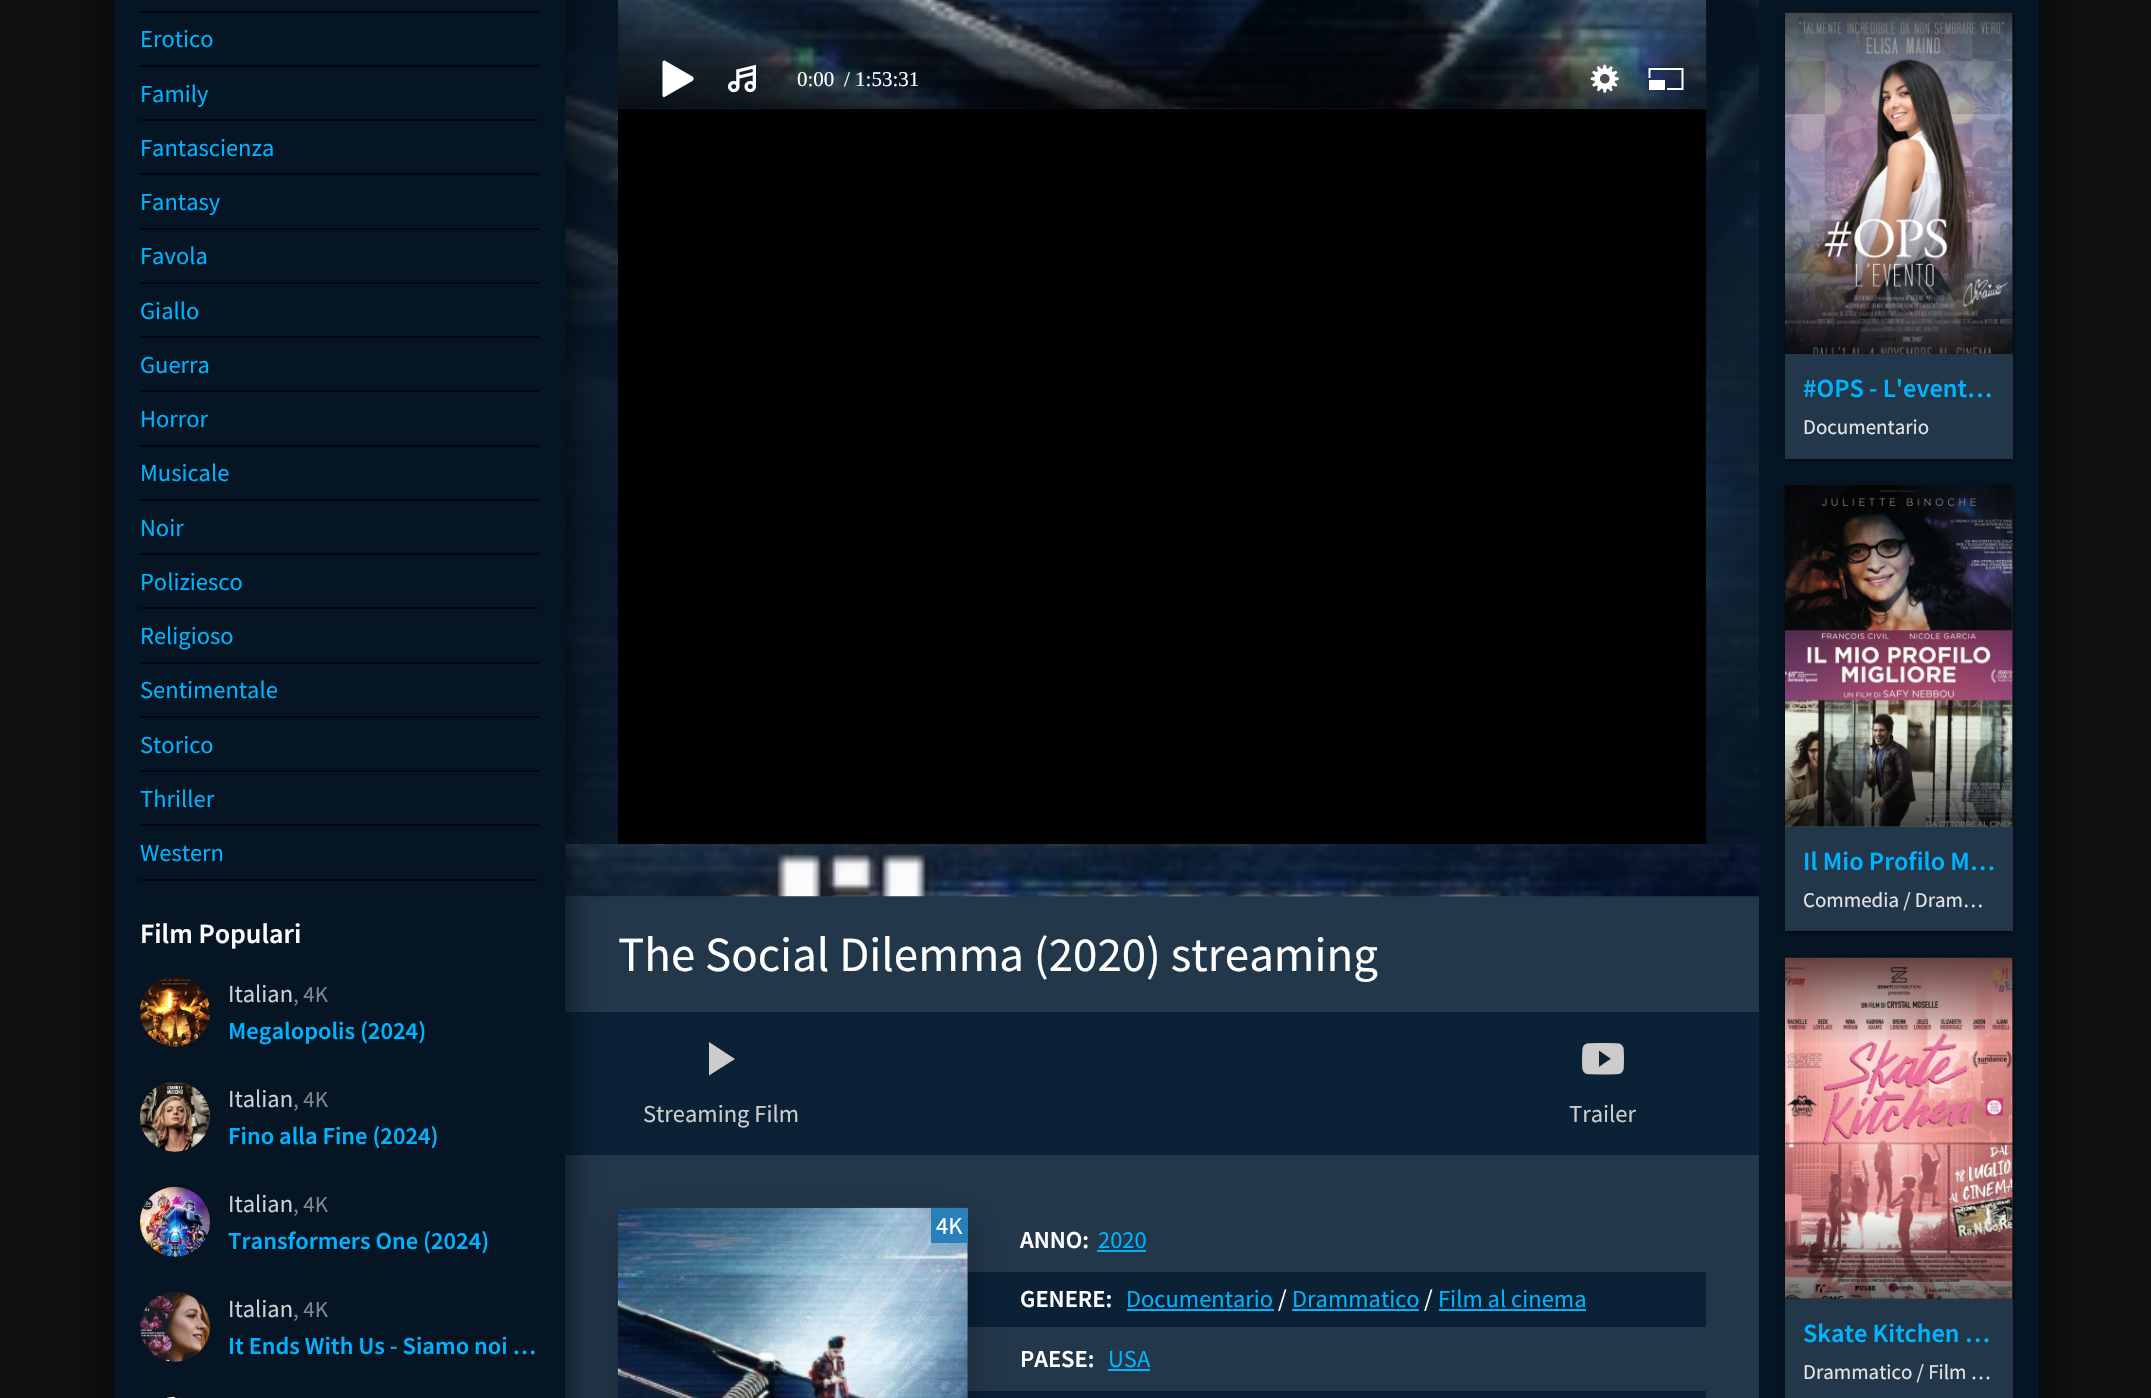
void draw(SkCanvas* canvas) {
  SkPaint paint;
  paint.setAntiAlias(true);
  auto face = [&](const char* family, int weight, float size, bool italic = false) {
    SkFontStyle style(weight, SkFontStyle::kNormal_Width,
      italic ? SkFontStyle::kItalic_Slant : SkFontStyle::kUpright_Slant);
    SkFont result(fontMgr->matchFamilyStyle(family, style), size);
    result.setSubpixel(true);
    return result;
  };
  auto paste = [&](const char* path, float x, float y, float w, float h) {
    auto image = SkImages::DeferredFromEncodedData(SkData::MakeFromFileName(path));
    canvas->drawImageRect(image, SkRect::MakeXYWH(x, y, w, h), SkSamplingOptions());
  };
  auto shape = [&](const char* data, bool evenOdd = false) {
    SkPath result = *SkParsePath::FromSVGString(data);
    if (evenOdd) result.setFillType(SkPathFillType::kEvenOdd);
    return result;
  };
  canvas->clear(0xff111111);
  paint.setColor(0xcc000000);
  paint.setMaskFilter(SkMaskFilter::MakeBlur(kNormal_SkBlurStyle, 26));
  canvas->drawRect(SkRect::MakeXYWH(114, -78, 1925, 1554), paint);
  paint.setMaskFilter(nullptr);
  paint.setColor(0xff0a2136);
  canvas->drawRect(SkRect::MakeXYWH(565, 0, 1194, 1155), paint);
  paint.setColor(0xff22374a);
  canvas->drawRect(SkRect::MakeXYWH(565, 896, 1194, 116), paint);
  paste("img/6.png", 565, 0, 1194, 897);
  paste("img/7.png", 618, 0, 1089, 109);
  paste("img/8.png", 618, 0, 1088, 109);
  {
    const struct { float x, y, w, h; SkColor color; } items[] = {
      {618, 109, 1088, 735, 0xff000000},
      {565, 1155, 1194, 243, 0xff22374a},
      {968, 1272, 738, 55, 0xff0a2136},
      {968, 1391, 738, 7, 0xff0a2136},
    };
    for (auto [x, y, w, h, color] : items) {
      paint.setColor(color);
      canvas->drawRect(SkRect::MakeXYWH(x, y, w, h), paint);
    }
  }
  paint.setColor(0x4d000000);
  paint.setMaskFilter(SkMaskFilter::MakeBlur(kNormal_SkBlurStyle, 17.5f));
  canvas->drawRect(SkRect::MakeXYWH(618, 1225, 350, 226), paint);
  paint.setMaskFilter(nullptr);
  paint.setColor(0xff222222);
  canvas->drawRect(SkRect::MakeXYWH(967, 1243, 1, 155), paint);
  paste("img/12.png", 617, 1207, 351, 191);
  paint.setColor(0xb3000000);
  paint.setMaskFilter(SkMaskFilter::MakeBlur(kNormal_SkBlurStyle, 17.5f));
  canvas->drawRect(SkRect::MakeXYWH(184, -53, 381, 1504), paint);
  paint.setMaskFilter(nullptr);
  {
    const struct { float x, y, w, h; SkColor color; } items[] = {
      {114, 0, 451, 1398, 0xff061524},
      {140, 11, 399, 2, 0xff02080e},
      {140, 65, 399, 2, 0xff02080e},
      {140, 119, 399, 2, 0xff02080e},
      {140, 173, 399, 2, 0xff02080e},
      {140, 228, 399, 2, 0xff02080e},
      {140, 282, 399, 2, 0xff02080e},
      {140, 336, 399, 2, 0xff02080e},
      {140, 390, 399, 2, 0xff02080e},
      {140, 445, 399, 2, 0xff02080e},
      {140, 499, 399, 2, 0xff02080e},
      {140, 553, 399, 2, 0xff02080e},
      {140, 607, 399, 2, 0xff02080e},
      {140, 662, 399, 2, 0xff02080e},
      {140, 716, 399, 2, 0xff02080e},
      {140, 770, 399, 2, 0xff02080e},
      {140, 824, 399, 2, 0xff02080e},
      {140, 879, 399, 2, 0xff02080e},
    };
    for (auto [x, y, w, h, color] : items) {
      paint.setColor(color);
      canvas->drawRect(SkRect::MakeXYWH(x, y, w, h), paint);
    }
  }
  paste("img/1.png", 140, 977, 70, 70);
  paste("img/2.png", 140, 1082, 70, 70);
  paste("img/3.png", 140, 1186, 70, 71);
  paste("img/4.png", 140, 1292, 70, 70);
  paste("img/5.png", 166, 1396, 17, 2);
  paint.setColor(0xffffffff);
  canvas->drawPath(shape("M692.5 76.5L665.5 61L664.5 60.5C663 60.5 662.5 61.5 662.5 62.5V95.5C662.5 96.5 663.5 97.5 664.5 97L688 83.5C689.5 82.5 696.5 80 692.5 76.5Z"), paint);
  paste("img/9.png", 728, 64, 28, 29);
  paste("img/10.png", 1590, 64, 29, 29);
  canvas->drawRect(SkRect::MakeXYWH(1649, 80, 16, 10), paint);
  canvas->drawPath(shape("M1650.5 70H1681.5V88H1667V90H1683.5V68H1648.5V78H1650.5Z"), paint);
  paint.setColor(0xffcccccc);
  canvas->drawPath(shape("M709 1042L735 1059L709 1075.5Z"), paint);
  paste("img/11.png", 1582, 1043, 42, 32);
  {
    const struct { float x, y, w, h; SkColor color; } items[] = {
      {931, 1208, 37, 35, 0xff2980b9},
      {1097, 1250, 49, 2, 0xff00b3ff},
      {1127, 1309, 147, 2, 0xff00b3ff},
      {1292, 1309, 127, 2, 0xff00b3ff},
      {1439, 1309, 147, 2, 0xff00b3ff},
      {1108, 1369, 42, 2, 0xff00b3ff},
      {1759, 0, 280, 1398, 0xff061524},
    };
    for (auto [x, y, w, h, color] : items) {
      paint.setColor(color);
      canvas->drawRect(SkRect::MakeXYWH(x, y, w, h), paint);
    }
  }
  paint.setColor(0xa6000000);
  paint.setMaskFilter(SkMaskFilter::MakeBlur(kNormal_SkBlurStyle, 2));
  canvas->drawRect(SkRect::MakeXYWH(1785, 14, 228, 446), paint);
  paint.setMaskFilter(nullptr);
  paint.setColor(0xff22374a);
  canvas->drawRect(SkRect::MakeXYWH(1785, 354, 228, 105), paint);
  paint.setColor(0xff222222);
  canvas->drawRect(SkRect::MakeXYWH(1785, 12, 228, 342), paint);
  paste("img/13.png", 1785, 12, 228, 342);
  {
    const SkColor colors[] = {0x99000000, 0x00000000};
    const float stops[] = {0, 1};
    const SkPoint ends[] = {{1899, 12}, {1899, 100}};
    paint.setShader(SkGradientShader::MakeLinear(ends, colors, stops, 2, SkTileMode::kClamp));
    paint.setAlpha(255);
  }
  canvas->drawRect(SkRect::MakeXYWH(1785, 12, 228, 85), paint);
  {
    const SkColor colors[] = {0x99000000, 0x00000000};
    const float stops[] = {0, 1};
    const SkPoint ends[] = {{1899, 354}, {1899, 266}};
    paint.setShader(SkGradientShader::MakeLinear(ends, colors, stops, 2, SkTileMode::kClamp));
    paint.setAlpha(255);
  }
  canvas->drawRect(SkRect::MakeXYWH(1785, 269, 228, 85), paint);
  paint.setShader(nullptr);
  paint.setColor(0xa6000000);
  paint.setMaskFilter(SkMaskFilter::MakeBlur(kNormal_SkBlurStyle, 2));
  canvas->drawRect(SkRect::MakeXYWH(1785, 487, 228, 446), paint);
  paint.setMaskFilter(nullptr);
  paint.setColor(0xff22374a);
  canvas->drawRect(SkRect::MakeXYWH(1785, 826, 228, 105), paint);
  paint.setColor(0xff222222);
  canvas->drawRect(SkRect::MakeXYWH(2012, 485, 1, 341), paint);
  paste("img/14.png", 1785, 485, 228, 342);
  {
    const SkColor colors[] = {0x99000000, 0x00000000};
    const float stops[] = {0, 1};
    const SkPoint ends[] = {{1899, 485}, {1899, 572}};
    paint.setShader(SkGradientShader::MakeLinear(ends, colors, stops, 2, SkTileMode::kClamp));
    paint.setAlpha(255);
  }
  canvas->drawRect(SkRect::MakeXYWH(1785, 485, 228, 84), paint);
  {
    const SkColor colors[] = {0x99000000, 0x00000000};
    const float stops[] = {0, 1};
    const SkPoint ends[] = {{1899, 826}, {1899, 739}};
    paint.setShader(SkGradientShader::MakeLinear(ends, colors, stops, 2, SkTileMode::kClamp));
    paint.setAlpha(255);
  }
  canvas->drawRect(SkRect::MakeXYWH(1785, 742, 228, 84), paint);
  paint.setShader(nullptr);
  paint.setColor(0xa6000000);
  paint.setMaskFilter(SkMaskFilter::MakeBlur(kNormal_SkBlurStyle, 2));
  canvas->drawRect(SkRect::MakeXYWH(1785, 959, 228, 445), paint);
  paint.setMaskFilter(nullptr);
  paint.setColor(0xff22374a);
  canvas->drawRect(SkRect::MakeXYWH(1785, 1299, 228, 99), paint);
  paint.setColor(0xff222222);
  canvas->drawRect(SkRect::MakeXYWH(1785, 957, 228, 342), paint);
  paste("img/15.png", 1785, 957, 228, 342);
  {
    const SkColor colors[] = {0x99000000, 0x00000000};
    const float stops[] = {0, 1};
    const SkPoint ends[] = {{1899, 957}, {1899, 1045}};
    paint.setShader(SkGradientShader::MakeLinear(ends, colors, stops, 2, SkTileMode::kClamp));
    paint.setAlpha(255);
  }
  canvas->drawRect(SkRect::MakeXYWH(1785, 957, 228, 85), paint);
  {
    const SkColor colors[] = {0x99000000, 0x00000000};
    const float stops[] = {0, 1};
    const SkPoint ends[] = {{1899, 1299}, {1899, 1211}};
    paint.setShader(SkGradientShader::MakeLinear(ends, colors, stops, 2, SkTileMode::kClamp));
    paint.setAlpha(255);
  }
  canvas->drawRect(SkRect::MakeXYWH(1785, 1214, 228, 85), paint);
  auto f0 = face("Source Sans Pro", 400, 24.5f);
  paint.setShader(nullptr);
  paint.setColor(0xff00b3ff);
  {
    const struct { const char* s; float x, y; } items[] = {
      {"Erotico", 140, 47},
      {"Family", 140, 102},
      {"Fantascienza", 140, 156},
      {"Fantasy", 140, 210},
      {"Favola", 140, 264},
      {"Giallo", 140, 319},
      {"Guerra", 140, 373},
      {"Horror", 140, 427},
      {"Musicale", 140, 481},
      {"Noir", 140, 536},
      {"Poliziesco", 140, 590},
      {"Religioso", 140, 644},
      {"Sentimentale", 140, 698},
      {"Storico", 140, 753},
      {"Thriller", 140, 807},
      {"Western", 140, 861},
    };
    for (auto [s, x, y] : items) {
      canvas->drawString(s, x, y, f0, paint);
    }
  }
  auto f1 = face("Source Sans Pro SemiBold", 600, 28);
  paint.setColor(0xffffffff);
  canvas->drawString("Film Populari", 140, 943, f1, paint);
  paint.setColor(0xffcdd0d3);
  canvas->drawString("Italian", 228, 1002, f0, paint);
  auto f2 = face("Source Sans Pro", 400, 23);
  paint.setColor(0xff7e858d);
  canvas->drawString(", 4K", 293, 1002, f2, paint);
  auto f3 = face("Source Sans Pro SemiBold", 600, 24.5f);
  paint.setColor(0xff00b3ff);
  canvas->drawString("Megalopolis (2024)", 228, 1039, f3, paint);
  paint.setColor(0xffcdd0d3);
  canvas->drawString("Italian", 228, 1107, f0, paint);
  paint.setColor(0xff7e858d);
  canvas->drawString(", 4K", 293, 1107, f2, paint);
  paint.setColor(0xff00b3ff);
  canvas->drawString("Fino alla Fine (2024)", 228, 1144, f3, paint);
  paint.setColor(0xffcdd0d3);
  canvas->drawString("Italian", 228, 1212, f0, paint);
  paint.setColor(0xff7e858d);
  canvas->drawString(", 4K", 293, 1212, f2, paint);
  paint.setColor(0xff00b3ff);
  canvas->drawString("Transformers One (2024)", 228, 1249, f3, paint);
  paint.setColor(0xffcdd0d3);
  canvas->drawString("Italian", 228, 1317, f0, paint);
  paint.setColor(0xff7e858d);
  canvas->drawString(", 4K", 293, 1317, f2, paint);
  paint.setColor(0xff00b3ff);
  canvas->drawString("It Ends With Us - Siamo noi …", 228, 1354, f3, paint);
  auto f4 = face("Liberation Serif", 400, 21);
  paint.setColor(0xffffffff);
  canvas->drawString("0:00", 797, 86, f4, paint);
  canvas->drawString("/ 1:53:31", 844, 86, f4, paint);
  auto f5 = face("Source Sans Pro", 400, 49);
  canvas->drawString("The Social Dilemma (2020) streaming", 618, 971, f5, paint);
  paint.setColor(0xffcccccc);
  canvas->drawString("Streaming Film", 643, 1122, f0, paint);
  canvas->drawString("Trailer", 1569, 1122, f0, paint);
  paint.setColor(0xffffffff);
  canvas->drawString("4K", 936, 1234, f0, paint);
  canvas->drawString("ANNO:", 1020, 1248, f3, paint);
  paint.setColor(0xff00b3ff);
  canvas->drawString("2020", 1098, 1248, f0, paint);
  paint.setColor(0xffffffff);
  canvas->drawString("GENERE:", 1020, 1307, f3, paint);
  paint.setColor(0xff00b3ff);
  canvas->drawString("Documentario", 1126, 1307, f0, paint);
  paint.setColor(0xffffffff);
  canvas->drawString("/", 1278, 1307, f0, paint);
  paint.setColor(0xff00b3ff);
  canvas->drawString("Drammatico", 1292, 1307, f0, paint);
  paint.setColor(0xffffffff);
  canvas->drawString("/", 1424, 1307, f0, paint);
  paint.setColor(0xff00b3ff);
  canvas->drawString("Film al cinema", 1438, 1307, f0, paint);
  paint.setColor(0xffffffff);
  canvas->drawString("PAESE:", 1020, 1367, f3, paint);
  paint.setColor(0xff00b3ff);
  canvas->drawString("USA", 1108, 1367, f0, paint);
  auto f6 = face("Source Sans Pro SemiBold", 600, 26.25f);
  canvas->drawString("#OPS - L'event…", 1803, 397, f6, paint);
  auto f7 = face("Source Sans Pro", 400, 21);
  paint.setColor(0xffe3e3e3);
  canvas->drawString("Documentario", 1803, 434, f7, paint);
  paint.setColor(0xff00b3ff);
  canvas->drawString("Il Mio Profilo M…", 1803, 870, f6, paint);
  paint.setColor(0xffe3e3e3);
  canvas->drawString("Commedia / Dram…", 1803, 907, f7, paint);
  paint.setColor(0xff00b3ff);
  canvas->drawString("Skate Kitchen …", 1803, 1342, f6, paint);
  paint.setColor(0xffe3e3e3);
  canvas->drawString("Drammatico / Film …", 1803, 1379, f7, paint);
}
